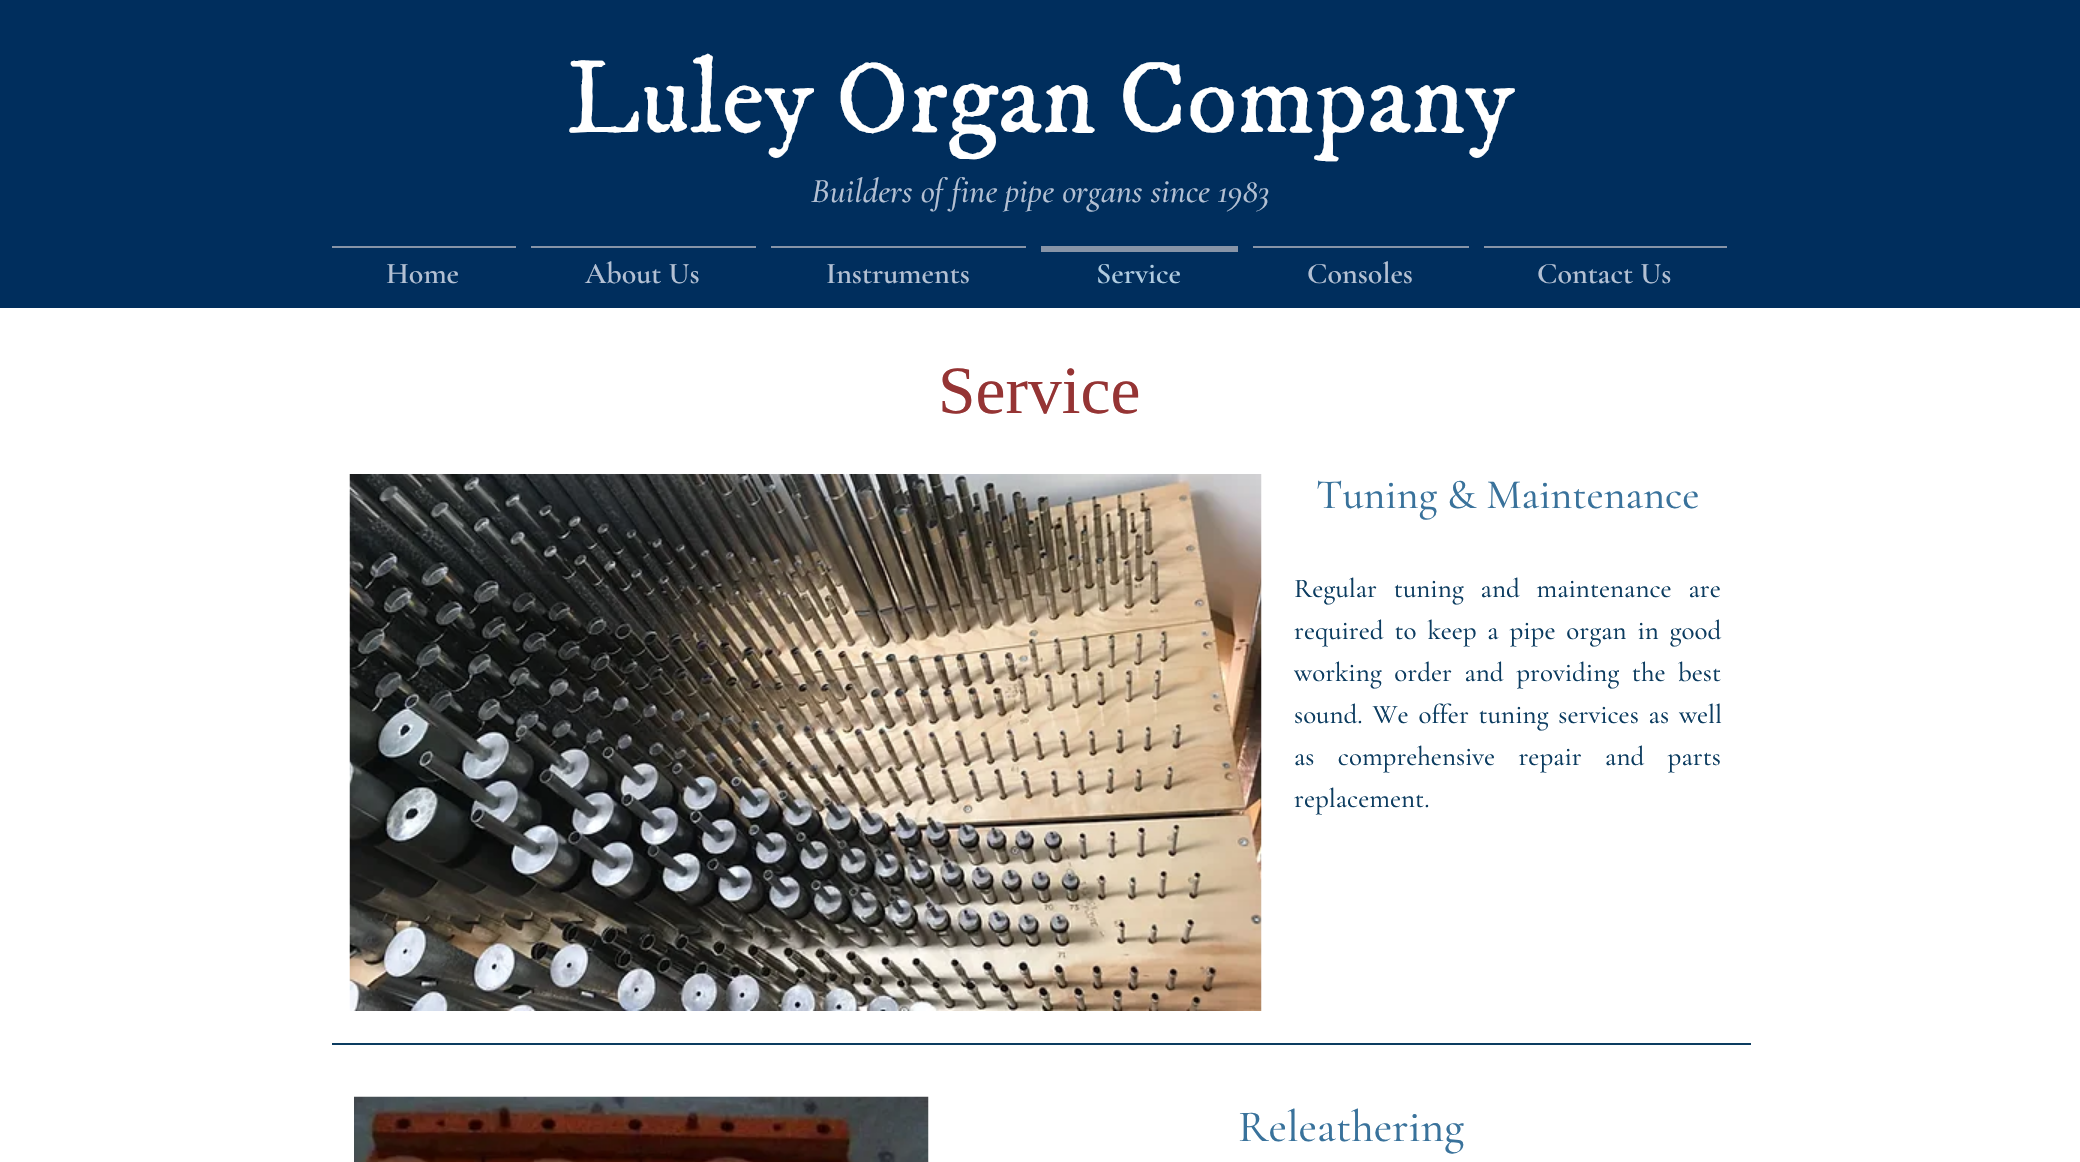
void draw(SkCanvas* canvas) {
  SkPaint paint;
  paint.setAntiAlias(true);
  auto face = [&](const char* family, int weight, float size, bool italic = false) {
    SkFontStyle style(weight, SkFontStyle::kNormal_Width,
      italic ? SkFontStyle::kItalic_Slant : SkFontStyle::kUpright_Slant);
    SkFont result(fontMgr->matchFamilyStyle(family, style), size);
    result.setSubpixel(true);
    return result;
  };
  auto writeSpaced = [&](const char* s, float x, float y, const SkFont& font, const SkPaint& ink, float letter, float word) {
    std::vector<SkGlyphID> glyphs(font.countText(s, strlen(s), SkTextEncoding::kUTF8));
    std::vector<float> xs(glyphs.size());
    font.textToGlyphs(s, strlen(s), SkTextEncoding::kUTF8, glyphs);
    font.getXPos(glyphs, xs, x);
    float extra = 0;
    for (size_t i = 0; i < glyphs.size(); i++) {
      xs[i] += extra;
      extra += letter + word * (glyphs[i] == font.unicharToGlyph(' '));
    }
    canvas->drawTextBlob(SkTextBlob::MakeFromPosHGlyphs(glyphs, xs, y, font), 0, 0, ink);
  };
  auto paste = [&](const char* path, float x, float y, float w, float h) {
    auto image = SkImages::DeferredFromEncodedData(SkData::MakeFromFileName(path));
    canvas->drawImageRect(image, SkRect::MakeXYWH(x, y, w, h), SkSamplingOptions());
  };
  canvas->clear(0xffffffff);
  {
    const struct { float x, y, w, h; SkColor color; } items[] = {
      {0, 0, 2080, 308, 0xff002e5d},
      {332, 246, 184, 2, 0xff8794a7},
      {531, 246, 225, 2, 0xff8794a7},
      {771, 246, 255, 2, 0xff8794a7},
      {1041, 246, 197, 6, 0xff8794a7},
      {1253, 246, 216, 2, 0xff8794a7},
      {1484, 246, 243, 2, 0xff8794a7},
    };
    for (auto [x, y, w, h, color] : items) {
      paint.setColor(color);
      canvas->drawRect(SkRect::MakeXYWH(x, y, w, h), paint);
    }
  }
  paste("img/1.png", 349, 474, 913, 537);
  paint.setColor(0xff0c3c60);
  canvas->drawRect(SkRect::MakeXYWH(332, 1043, 1419, 2), paint);
  paste("img/2.png", 354, 1096, 575, 66);
  auto f0 = face("IM FELL DW Pica", 400, 103.5f);
  paint.setColor(0xffffffff);
  canvas->drawString("Luley Organ Company", 566, 132, f0, paint);
  auto f1 = face("Cormorant Garamond", 500, 34.5f, true);
  paint.setColor(0xffb3c0d3);
  canvas->drawString("Builders of fine pipe organs since 1983", 811, 202, f1, paint);
  auto f2 = face("Cormorant Garamond", 600, 30);
  {
    const struct { const char* s; float x, y; } items[] = {
      {"Home", 386, 283},
      {"About Us", 585, 283},
      {"Instruments", 826, 283},
    };
    for (auto [s, x, y] : items) {
      canvas->drawString(s, x, y, f2, paint);
    }
  }
  paint.setColor(0xffafcbe0);
  canvas->drawString("Service", 1096, 283, f2, paint);
  paint.setColor(0xffb3c0d3);
  canvas->drawString("Consoles", 1307, 283, f2, paint);
  canvas->drawString("Contact Us", 1537, 283, f2, paint);
  auto f3 = face("Liberation Serif", 400, 67.5f);
  paint.setColor(0xff953434);
  canvas->drawString("Service", 938, 413, f3, paint);
  auto f4 = face("Cormorant Garamond", 500, 42);
  paint.setColor(0xff39729b);
  canvas->drawString("Tuning & Maintenance", 1316, 508, f4, paint);
  auto f5 = face("Cormorant Garamond", 500, 27);
  paint.setColor(0xff0c3c60);
  writeSpaced("Regular tuning and maintenance are", 1294, 597, f5, paint, 0, 10.5f);
  writeSpaced("required to keep a pipe organ in good", 1294, 639, f5, paint, 0, 4.5f);
  writeSpaced("working order and providing the best", 1294, 681, f5, paint, 0, 6.25f);
  writeSpaced("sound. We offer tuning services as well", 1294, 723, f5, paint, 0, 3.5f);
  writeSpaced("as comprehensive repair and parts", 1294, 765, f5, paint, 0, 17);
  canvas->drawString("replacement.", 1294, 807, f5, paint);
  auto f6 = face("Cormorant Garamond", 500, 45);
  paint.setColor(0xff39729b);
  canvas->drawString("Releathering", 1238, 1141, f6, paint);
}
